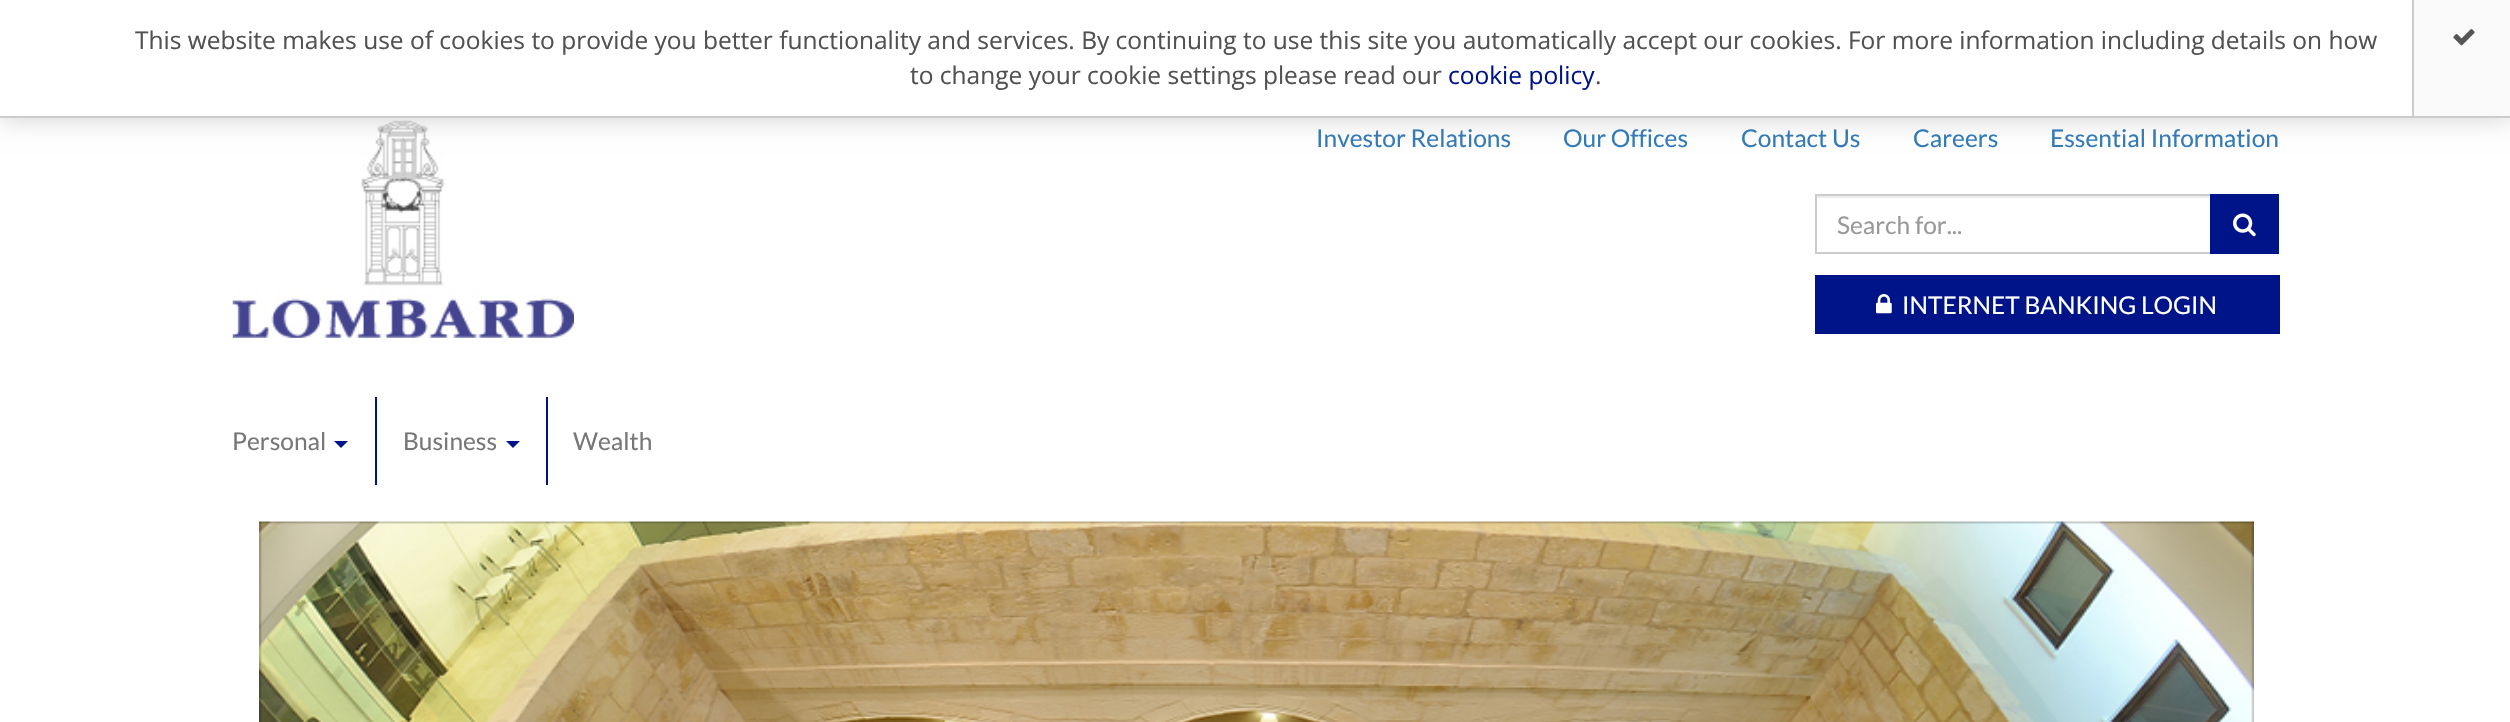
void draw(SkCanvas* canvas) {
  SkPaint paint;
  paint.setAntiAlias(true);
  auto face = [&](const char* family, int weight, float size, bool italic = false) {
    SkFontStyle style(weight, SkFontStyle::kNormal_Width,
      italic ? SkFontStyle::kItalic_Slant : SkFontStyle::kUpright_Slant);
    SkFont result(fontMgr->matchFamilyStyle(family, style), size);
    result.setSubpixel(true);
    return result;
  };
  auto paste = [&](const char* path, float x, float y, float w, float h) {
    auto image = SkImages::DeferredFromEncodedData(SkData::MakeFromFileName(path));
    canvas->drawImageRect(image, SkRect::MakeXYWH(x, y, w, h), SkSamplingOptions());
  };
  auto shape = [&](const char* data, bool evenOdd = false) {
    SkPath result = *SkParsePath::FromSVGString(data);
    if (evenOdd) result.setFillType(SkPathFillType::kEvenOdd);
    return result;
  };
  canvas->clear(0xffffffff);
  paste("img/2.png", 232, 120, 342, 218);
  paint.setColor(0xffcccccc);
  paint.setMaskFilter(SkMaskFilter::MakeBlur(kNormal_SkBlurStyle, 13));
  canvas->drawRect(SkRect::MakeXYWH(0, 0, 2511, 117), paint);
  paint.setMaskFilter(nullptr);
  {
    const struct { float x, y, w, h; SkColor color; } items[] = {
      {0, 0, 2412, 116, 0xffffffff},
      {0, 116, 2510, 2, 0xffcccccc},
      {2414, 0, 96, 116, 0xfff9f9f9},
      {2412, 0, 2, 116, 0xffcccccc},
    };
    for (auto [x, y, w, h, color] : items) {
      paint.setColor(color);
      canvas->drawRect(SkRect::MakeXYWH(x, y, w, h), paint);
    }
  }
  paste("img/1.png", 2453, 29, 22, 17);
  paint.setColor(0xffececec);
  canvas->drawRect(SkRect::MakeXYWH(1817, 196, 393, 2), paint);
  paint.setStroke(true);
  paint.setStrokeWidth(2);
  paint.setColor(0xffcccccc);
  canvas->drawRect(SkRect::MakeXYWH(1816, 195, 395, 58), paint);
  paint.setStroke(false);
  paint.setColor(0xff001489);
  canvas->drawRect(SkRect::MakeXYWH(2210, 194, 69, 60), paint);
  paste("img/3.png", 2233, 213, 23, 24);
  canvas->drawRect(SkRect::MakeXYWH(1815, 275, 465, 59), paint);
  paste("img/4.png", 1876, 294, 16, 20);
  canvas->drawRect(SkRect::MakeXYWH(375, 397, 2, 88), paint);
  canvas->drawPath(shape("M334 441H348L341 448Z"), paint);
  canvas->drawRect(SkRect::MakeXYWH(546, 397, 2, 88), paint);
  canvas->drawPath(shape("M506 441H520L513 448Z"), paint);
  paste("img/5.png", 259, 521, 1995, 201);
  auto f0 = face("Open Sans", 400, 24.5f);
  paint.setColor(0xff515151);
  canvas->drawString("This website makes use of cookies to provide you better functionality and services. By continuing to use this site you automatically accept our cookies. For more information including details on how", 135, 49, f0, paint);
  canvas->drawString("to change your cookie settings please read our", 910, 84, f0, paint);
  paint.setColor(0xff001489);
  canvas->drawString("cookie policy", 1448, 84, f0, paint);
  paint.setColor(0xff515151);
  canvas->drawString(".", 1595, 84, f0, paint);
  auto f1 = face("Lato", 400, 24.5f);
  paint.setColor(0xff337ab7);
  {
    const struct { const char* s; float x, y; } items[] = {
      {"Investor Relations", 1316, 147},
      {"Our Offices", 1563, 147},
      {"Contact Us", 1741, 147},
      {"Careers", 1913, 147},
      {"Essential Information", 2050, 147},
    };
    for (auto [s, x, y] : items) {
      canvas->drawString(s, x, y, f1, paint);
    }
  }
  paint.setColor(0xff999999);
  canvas->drawString("Search for...", 1837, 234, f1, paint);
  paint.setColor(0xffffffff);
  canvas->drawString("INTERNET BANKING LOGIN", 1902, 314, f1, paint);
  paint.setColor(0xff777777);
  {
    const struct { const char* s; float x, y; } items[] = {
      {"Personal", 232, 450},
      {"Business", 403, 450},
      {"Wealth", 573, 450},
    };
    for (auto [s, x, y] : items) {
      canvas->drawString(s, x, y, f1, paint);
    }
  }
}
